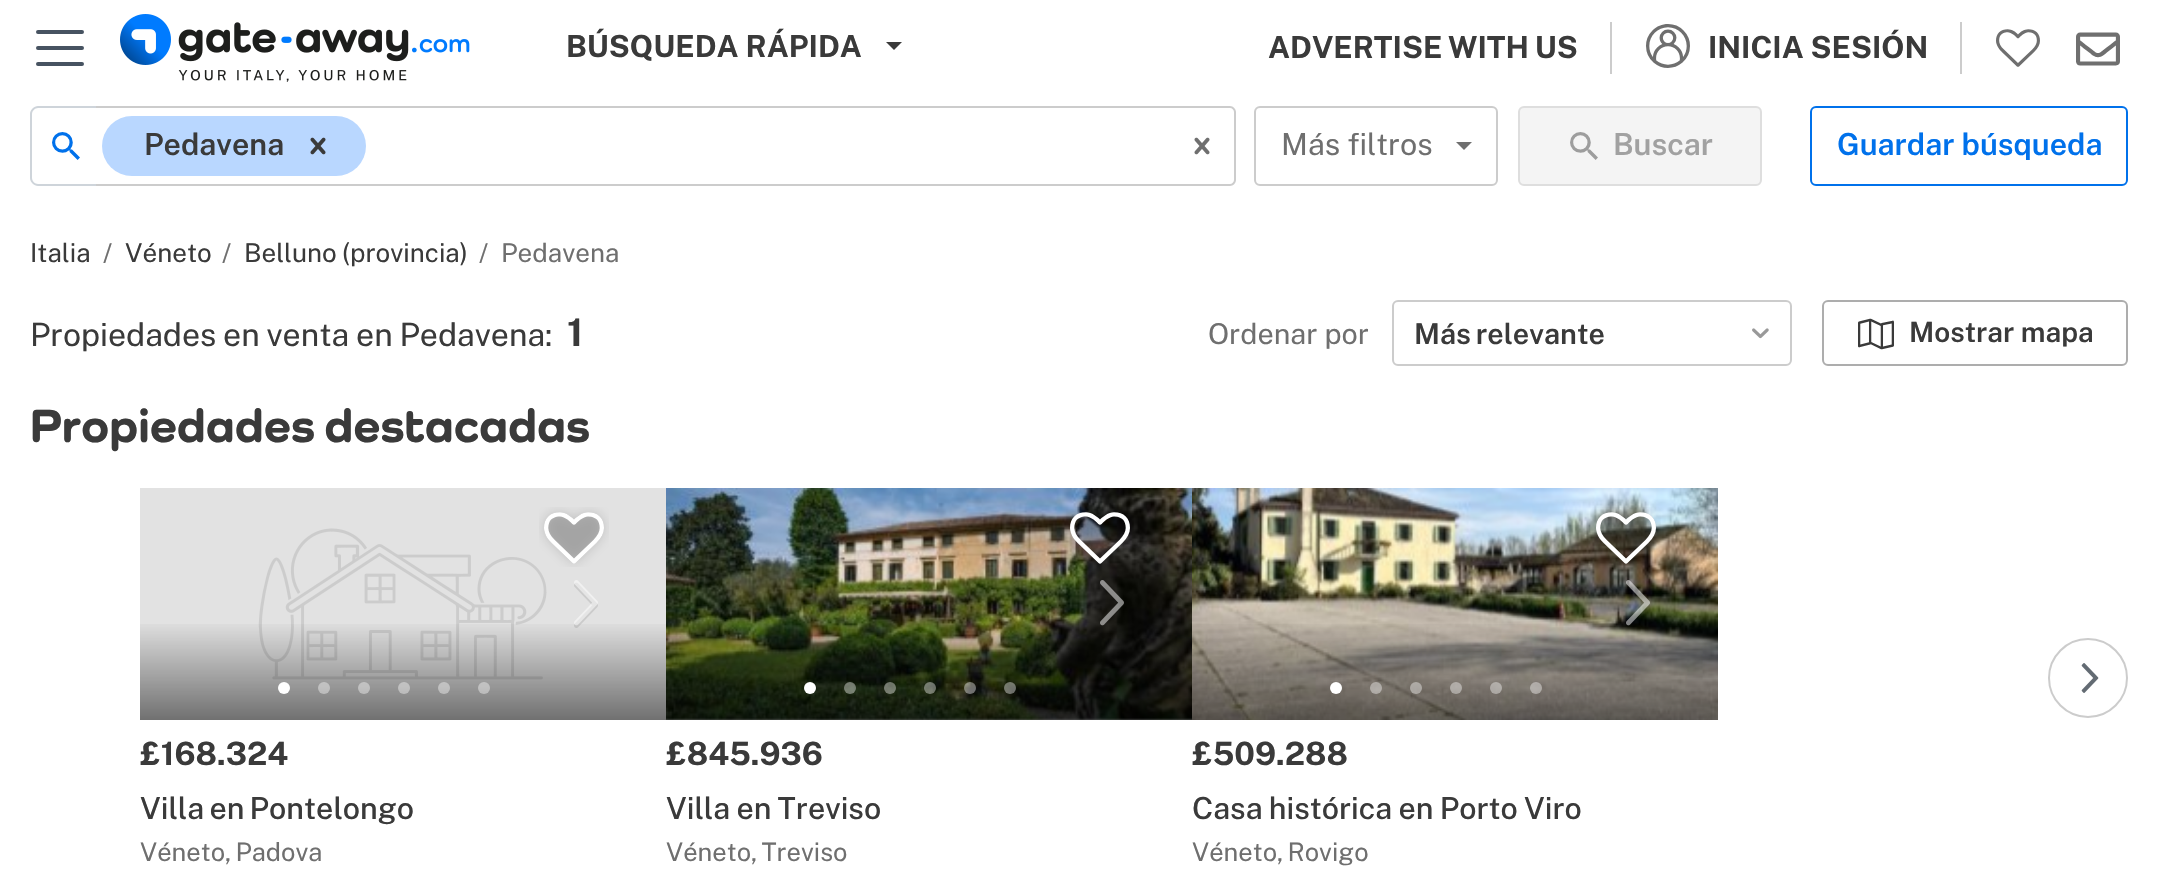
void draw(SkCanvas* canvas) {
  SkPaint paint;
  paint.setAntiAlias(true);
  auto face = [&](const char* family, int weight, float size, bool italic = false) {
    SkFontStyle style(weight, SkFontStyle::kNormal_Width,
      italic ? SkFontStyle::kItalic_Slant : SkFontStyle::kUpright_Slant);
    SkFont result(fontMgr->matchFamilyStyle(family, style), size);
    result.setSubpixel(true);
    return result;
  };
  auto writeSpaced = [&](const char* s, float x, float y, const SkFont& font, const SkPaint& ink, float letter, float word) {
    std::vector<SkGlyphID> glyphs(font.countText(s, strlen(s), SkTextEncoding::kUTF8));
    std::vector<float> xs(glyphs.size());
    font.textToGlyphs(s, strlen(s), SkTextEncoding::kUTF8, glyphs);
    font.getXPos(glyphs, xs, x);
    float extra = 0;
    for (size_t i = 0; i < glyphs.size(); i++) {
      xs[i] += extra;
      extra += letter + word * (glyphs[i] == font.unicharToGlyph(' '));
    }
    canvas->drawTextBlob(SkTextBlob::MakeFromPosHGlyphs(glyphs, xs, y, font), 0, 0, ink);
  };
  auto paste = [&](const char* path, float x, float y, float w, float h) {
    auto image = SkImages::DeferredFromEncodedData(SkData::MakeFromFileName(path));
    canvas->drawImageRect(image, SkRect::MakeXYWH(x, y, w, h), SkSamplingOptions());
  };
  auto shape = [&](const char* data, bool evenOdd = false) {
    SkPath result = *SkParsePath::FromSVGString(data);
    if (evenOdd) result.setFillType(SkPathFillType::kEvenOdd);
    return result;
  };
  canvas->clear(0xffffffff);
  paint.setStroke(true);
  paint.setStrokeWidth(4);
  paint.setStrokeCap(SkPaint::kRound_Cap);
  paint.setColor(0xff475361);
  canvas->drawPath(shape("M38 32H82M38 48H82M38 64H82"), paint);
  paste("img/1.png", 120, 14, 350, 68);
  paint.setStroke(false);
  paint.setColor(0xff3a3a3a);
  canvas->drawPath(shape("M886 42H902L894 50Z"), paint);
  paint.setColor(0xffcccccc);
  canvas->drawRect(SkRect::MakeXYWH(1610, 22, 2, 52), paint);
  canvas->drawRect(SkRect::MakeXYWH(1960, 22, 2, 52), paint);
  paste("img/2.png", 1646, 24, 44, 44);
  paste("img/3.png", 1996, 29, 44, 38);
  paste("img/4.png", 2076, 32, 44, 34);
  paint.setColor(0xffced4da);
  canvas->drawPath(shape("M38 106H98V186H38C34 186 30 182 30 178V114C30 110 34 106 38 106ZM38 108H98V184H38C35 184 32 181 32 178V114C32 111 35 108 38 108Z", true), paint);
  paste("img/5.png", 52, 132, 28, 28);
  paint.setColor(0xffffffff);
  canvas->drawPath(shape("M96 106H1230C1233.5 106 1236 108.5 1236 112V180C1236 183.5 1233.5 186 1230 186H96Z"), paint);
  paint.setColor(0xffcccccc);
  canvas->drawPath(shape("M96 106H1230C1233 106 1236 109 1236 112V180C1236 183 1233 186 1230 186H96ZM96 108H1230C1232 108 1234 110 1234 112V180C1234 182 1232 184 1230 184H96Z", true), paint);
  paint.setColor(0xffb9d7ff);
  canvas->drawRoundRect(SkRect::MakeXYWH(102, 116, 264, 60), 30, 30, paint);
  paste("img/6.png", 310, 137, 16, 18);
  paste("img/7.png", 1194, 137, 16, 18);
  paint.setStroke(true);
  paint.setStrokeWidth(2);
  paint.setStrokeCap(SkPaint::kButt_Cap);
  paint.setColor(0xffcccccc);
  canvas->drawRoundRect(SkRect::MakeXYWH(1255, 107, 242, 78), 5, 5, paint);
  paint.setStroke(false);
  paint.setColor(0xff6f6f6f);
  canvas->drawPath(shape("M1456 142H1472L1464 150Z"), paint);
  paint.setColor(0xfff4f4f4);
  canvas->drawRoundRect(SkRect::MakeXYWH(1519, 107, 242, 78), 5, 5, paint);
  paint.setStroke(true);
  paint.setColor(0xffdedede);
  canvas->drawRoundRect(SkRect::MakeXYWH(1519, 107, 242, 78), 5, 5, paint);
  paste("img/8.png", 1570, 132, 28, 28);
  paint.setColor(0xff0071eb);
  canvas->drawRoundRect(SkRect::MakeXYWH(1811, 107, 316, 78), 5, 5, paint);
  paint.setColor(0xffcccccc);
  canvas->drawRoundRect(SkRect::MakeXYWH(1393, 301, 398, 64), 5, 5, paint);
  paste("img/9.png", 1752, 328, 17, 11);
  paint.setColor(0xffadadad);
  canvas->drawRoundRect(SkRect::MakeXYWH(1823, 301, 304, 64), 5, 5, paint);
  paste("img/10.png", 1858, 318, 36, 32);
  paint.setColor(0xffcccccc);
  canvas->drawCircle(2088, 678, 39, paint);
  paste("img/11.png", 2081, 663, 18, 30);
  paint.setStroke(false);
  paint.setColor(0xffe2e2e2);
  canvas->drawRect(SkRect::MakeXYWH(140, 488, 526, 232), paint);
  paste("img/12.png", 258, 528, 289, 152);
  {
    const SkColor colors[] = {0x00000000, 0x80000000};
    const float stops[] = {0, 1};
    const SkPoint ends[] = {{403, 620}, {403, 720}};
    paint.setShader(SkGradientShader::MakeLinear(ends, colors, stops, 2, SkTileMode::kClamp));
    paint.setAlpha(255);
  }
  canvas->drawRect(SkRect::MakeXYWH(140, 624, 526, 96), paint);
  paste("img/13.png", 574, 580, 24, 48);
  paint.setShader(nullptr);
  paint.setColor(0xffffffff);
  canvas->drawCircle(284, 688, 6, paint);
  paint.setColor(0x66ffffff);
  canvas->drawCircle(324, 688, 6, paint);
  canvas->drawCircle(364, 688, 6, paint);
  canvas->drawCircle(404, 688, 6, paint);
  canvas->drawCircle(444, 688, 6, paint);
  canvas->drawCircle(484, 688, 6, paint);
  paste("img/14.png", 539, 507, 70, 60);
  paste("img/15.png", 544, 512, 60, 52);
  paint.setColor(0xffe2e2e2);
  canvas->drawRect(SkRect::MakeXYWH(666, 718, 526, 2), paint);
  paste("img/16.png", 666, 488, 526, 232);
  {
    const SkColor colors[] = {0x00000000, 0x80000000};
    const float stops[] = {0, 1};
    const SkPoint ends[] = {{929, 620}, {929, 720}};
    paint.setShader(SkGradientShader::MakeLinear(ends, colors, stops, 2, SkTileMode::kClamp));
    paint.setAlpha(255);
  }
  canvas->drawRect(SkRect::MakeXYWH(666, 624, 526, 96), paint);
  paste("img/17.png", 1100, 580, 24, 46);
  paint.setShader(nullptr);
  paint.setColor(0xffffffff);
  canvas->drawCircle(810, 688, 6, paint);
  paint.setColor(0x66ffffff);
  canvas->drawCircle(850, 688, 6, paint);
  canvas->drawCircle(890, 688, 6, paint);
  canvas->drawCircle(930, 688, 6, paint);
  canvas->drawCircle(970, 688, 6, paint);
  canvas->drawCircle(1010, 688, 6, paint);
  paste("img/18.png", 1066, 509, 63, 54);
  paste("img/19.png", 1070, 512, 60, 52);
  paste("img/20.png", 1192, 488, 526, 232);
  {
    const SkColor colors[] = {0x00000000, 0x80000000};
    const float stops[] = {0, 1};
    const SkPoint ends[] = {{1455, 620}, {1455, 720}};
    paint.setShader(SkGradientShader::MakeLinear(ends, colors, stops, 2, SkTileMode::kClamp));
    paint.setAlpha(255);
  }
  canvas->drawRect(SkRect::MakeXYWH(1192, 624, 526, 96), paint);
  paste("img/21.png", 1626, 580, 24, 46);
  paint.setShader(nullptr);
  paint.setColor(0xffffffff);
  canvas->drawCircle(1336, 688, 6, paint);
  paint.setColor(0x66ffffff);
  canvas->drawCircle(1376, 688, 6, paint);
  canvas->drawCircle(1416, 688, 6, paint);
  canvas->drawCircle(1456, 688, 6, paint);
  canvas->drawCircle(1496, 688, 6, paint);
  canvas->drawCircle(1536, 688, 6, paint);
  paste("img/22.png", 1591, 507, 70, 57);
  paste("img/23.png", 1596, 512, 60, 52);
  auto f0 = face("Public Sans", 700, 30.4f);
  paint.setColor(0xff3a3a3a);
  canvas->drawString("BÚSQUEDA RÁPIDA", 566, 57, f0, paint);
  writeSpaced("ADVERTISE WITH US", 1268, 58, f0, paint, 0, -1);
  canvas->drawString("INICIA SESIÓN", 1708, 58, f0, paint);
  auto f1 = face("Public Sans", 600, 30.4f);
  canvas->drawString("Pedavena", 144, 155, f1, paint);
  auto f2 = face("Public Sans", 400, 30.4f);
  paint.setColor(0xff6f6f6f);
  canvas->drawString("Más filtros", 1281, 155, f2, paint);
  paint.setColor(0xffa1a1a1);
  canvas->drawString("Buscar", 1613, 155, f1, paint);
  paint.setColor(0xff0071eb);
  canvas->drawString("Guardar búsqueda", 1837, 155, f1, paint);
  auto f3 = face("Public Sans", 400, 26);
  paint.setColor(0xff3a3a3a);
  canvas->drawString("Italia", 30, 262, f3, paint);
  paint.setColor(0xff6f6f6f);
  canvas->drawString("/", 103, 262, f3, paint);
  paint.setColor(0xff3a3a3a);
  canvas->drawString("Véneto", 125, 262, f3, paint);
  paint.setColor(0xff6f6f6f);
  canvas->drawString("/", 222, 262, f3, paint);
  paint.setColor(0xff3a3a3a);
  writeSpaced("Belluno (provincia)", 244, 262, f3, paint, 0, -1);
  paint.setColor(0xff6f6f6f);
  canvas->drawString("/", 479, 262, f3, paint);
  canvas->drawString("Pedavena", 501, 262, f3, paint);
  auto f4 = face("Public Sans", 400, 32);
  paint.setColor(0xff3a3a3a);
  writeSpaced("Propiedades en venta en Pedavena", 30, 346, f4, paint, 0, -1);
  canvas->drawString(":", 545, 346, f4, paint);
  auto f5 = face("Public Sans", 700, 38);
  canvas->drawString("1", 567, 346, f5, paint);
  auto f6 = face("Public Sans", 400, 28.75f);
  paint.setColor(0xff6f6f6f);
  canvas->drawString("Ordenar por", 1208, 344, f6, paint);
  canvas->save();
  canvas->clipRect(SkRect::MakeXYWH(1414, 312, 190, 42));
  auto f7 = face("Public Sans", 600, 28.75f);
  paint.setColor(0xff3a3a3a);
  writeSpaced("Más relevante", 1414, 344, f7, paint, 0, -2);
  canvas->restore();
  auto f8 = face("Public Sans", 600, 28);
  canvas->drawString("Mostrar mapa", 1909, 342, f8, paint);
  auto f9 = face("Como", 800, 48);
  writeSpaced("Propiedades destacadas", 30, 442, f9, paint, 0, -2);
  auto f10 = face("Public Sans", 700, 32);
  canvas->drawString("£168.324", 140, 765, f10, paint);
  auto f11 = face("Public Sans", 500, 30.4f);
  writeSpaced("Villa en Pontelongo", 140, 819, f11, paint, 0, -2);
  auto f12 = face("Public Sans", 400, 25.5f);
  paint.setColor(0xff6f6f6f);
  writeSpaced("Véneto, Padova", 140, 861, f12, paint, 0, -2);
  paint.setColor(0xff3a3a3a);
  canvas->drawString("£845.936", 666, 765, f10, paint);
  writeSpaced("Villa en Treviso", 666, 819, f11, paint, 0, -1);
  paint.setColor(0xff6f6f6f);
  writeSpaced("Véneto, Treviso", 666, 861, f12, paint, 0, -2);
  paint.setColor(0xff3a3a3a);
  canvas->drawString("£509.288", 1192, 765, f10, paint);
  writeSpaced("Casa histórica en Porto Viro", 1192, 819, f11, paint, 0, -1);
  paint.setColor(0xff6f6f6f);
  writeSpaced("Véneto, Rovigo", 1192, 861, f12, paint, 0, -2);
}
